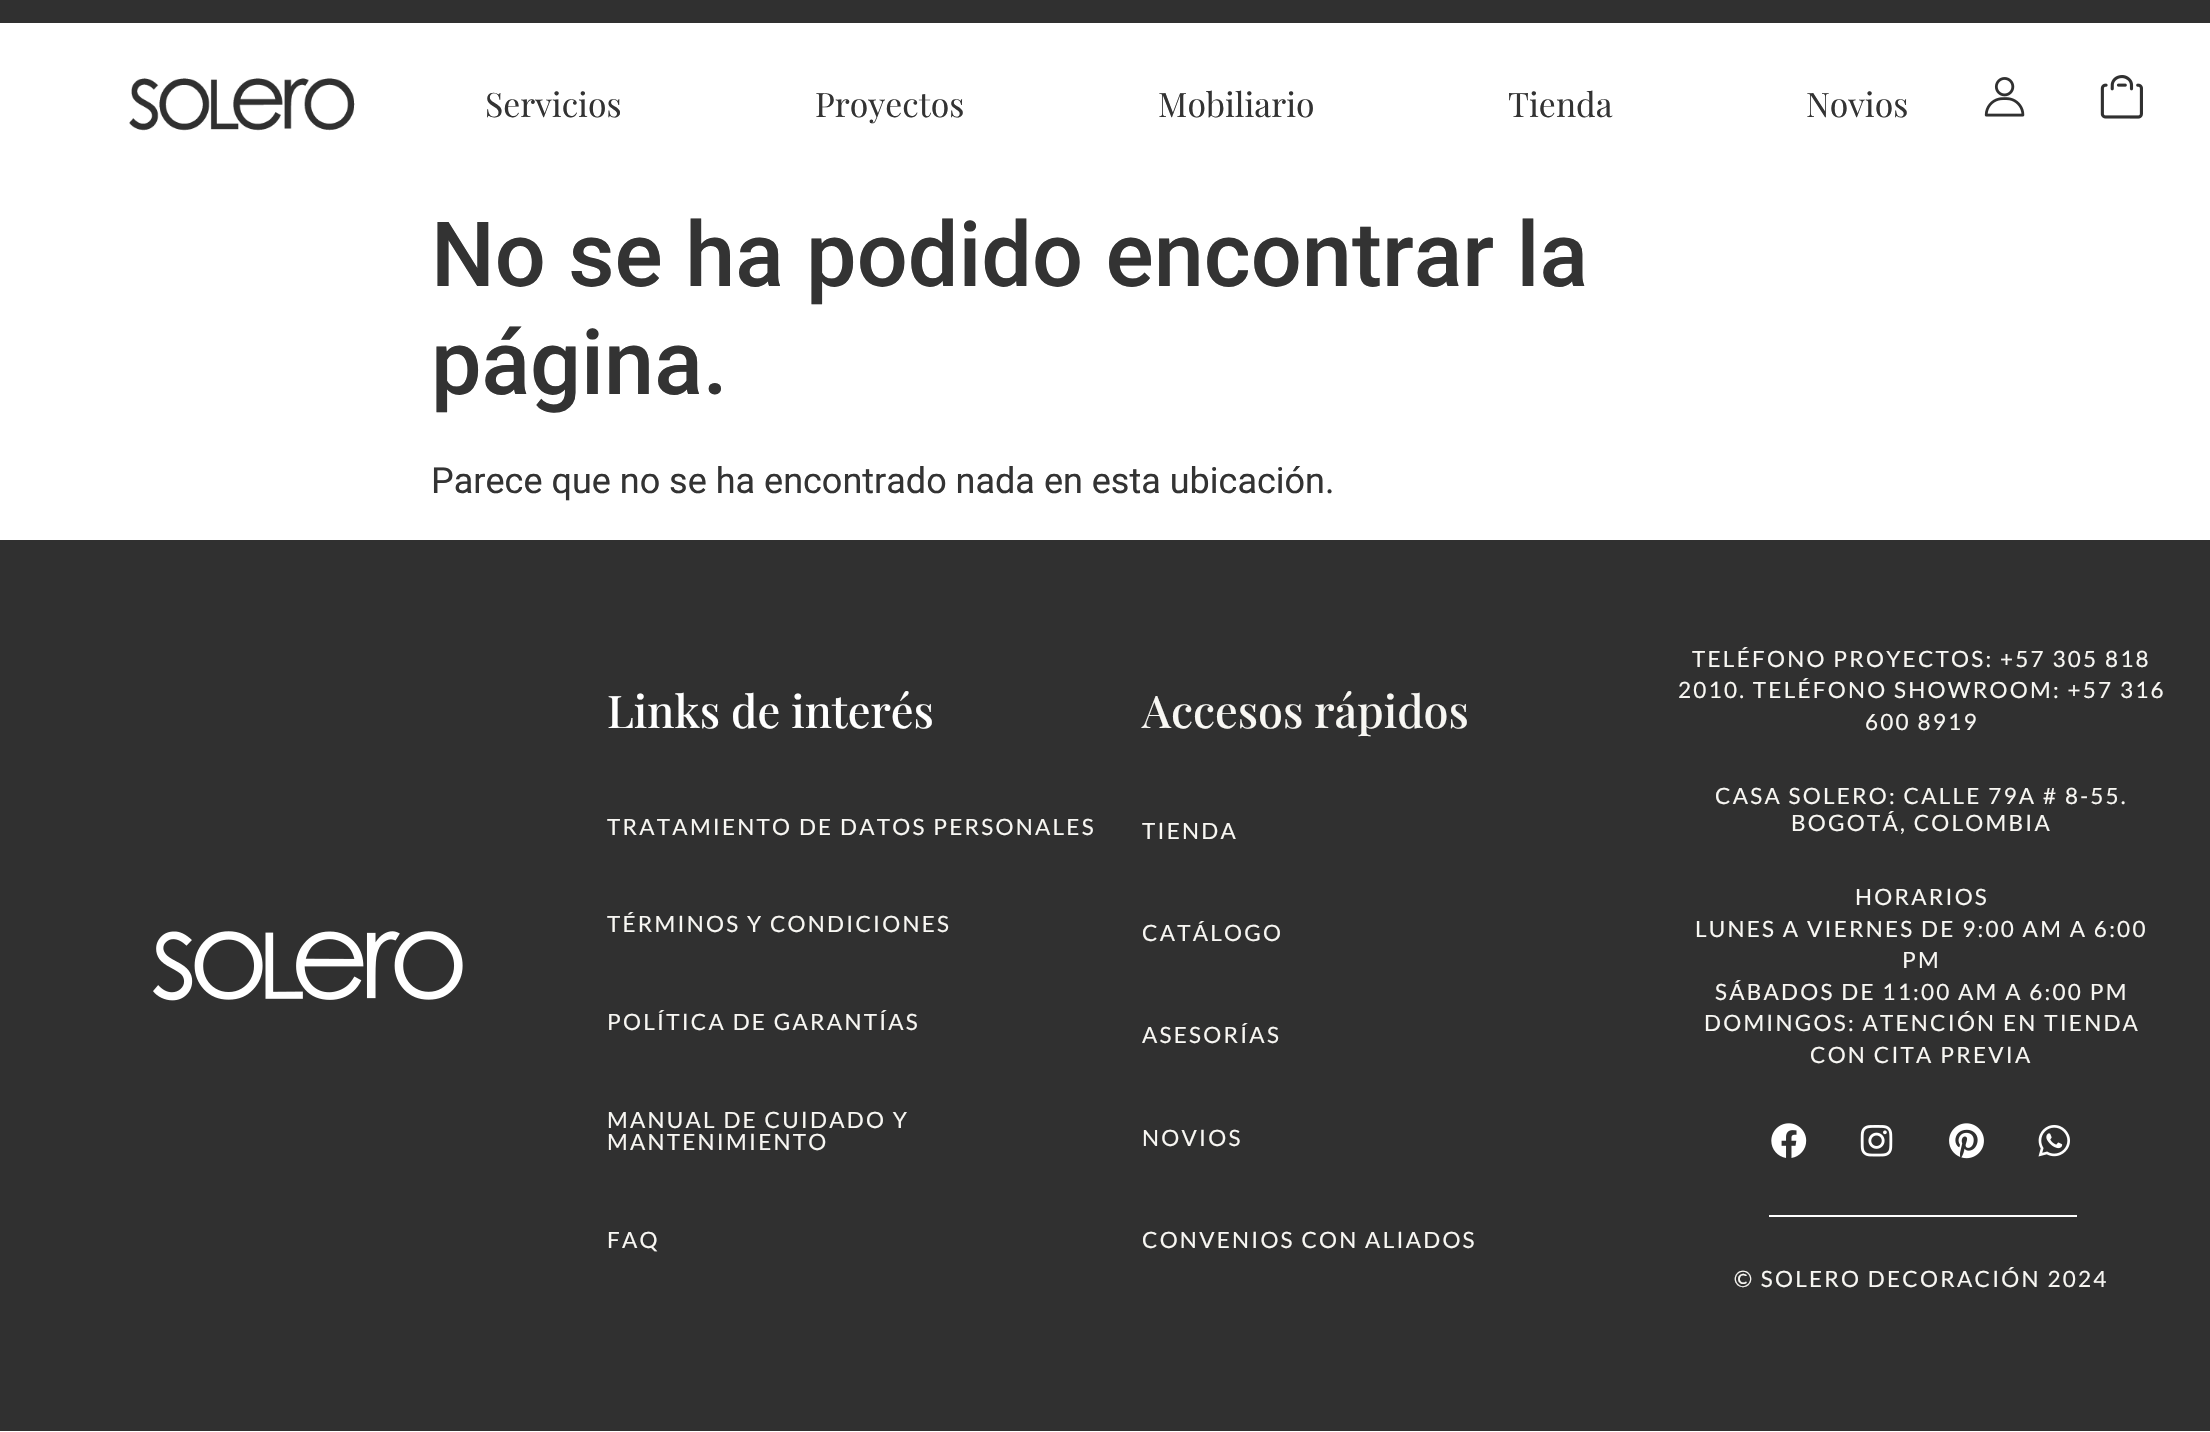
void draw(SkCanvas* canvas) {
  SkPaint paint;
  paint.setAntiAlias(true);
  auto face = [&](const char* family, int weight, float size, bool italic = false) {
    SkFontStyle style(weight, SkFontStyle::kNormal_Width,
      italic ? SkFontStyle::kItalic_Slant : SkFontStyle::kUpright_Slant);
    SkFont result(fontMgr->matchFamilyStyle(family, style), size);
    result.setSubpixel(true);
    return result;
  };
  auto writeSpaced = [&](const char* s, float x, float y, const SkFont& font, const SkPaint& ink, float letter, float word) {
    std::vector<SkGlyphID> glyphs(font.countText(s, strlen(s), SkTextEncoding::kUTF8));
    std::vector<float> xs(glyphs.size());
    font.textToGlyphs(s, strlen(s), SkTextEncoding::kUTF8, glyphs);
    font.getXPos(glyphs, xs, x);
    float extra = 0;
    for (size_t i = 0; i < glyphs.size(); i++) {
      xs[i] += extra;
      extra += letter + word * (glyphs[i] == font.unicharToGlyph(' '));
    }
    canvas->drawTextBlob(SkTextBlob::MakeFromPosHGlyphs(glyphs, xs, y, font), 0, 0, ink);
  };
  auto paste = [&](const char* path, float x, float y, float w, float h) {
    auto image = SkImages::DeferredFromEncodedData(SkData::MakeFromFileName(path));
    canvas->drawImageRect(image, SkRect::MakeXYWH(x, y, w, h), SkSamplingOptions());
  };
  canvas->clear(0xffffffff);
  paint.setColor(0xff303030);
  canvas->drawRect(SkRect::MakeXYWH(0, 0, 2210, 23), paint);
  paste("img/1.png", 129, 78, 226, 53);
  paste("img/2.png", 1984, 77, 41, 40);
  paste("img/3.png", 2100, 75, 43, 44);
  canvas->drawRect(SkRect::MakeXYWH(0, 540, 2210, 891), paint);
  paste("img/4.png", 153, 931, 310, 70);
  paste("img/5.png", 1771, 1123, 36, 35);
  paste("img/6.png", 1860, 1125, 33, 32);
  paste("img/7.png", 1949, 1123, 35, 36);
  paste("img/8.png", 2038, 1125, 32, 32);
  paint.setColor(0xffffffff);
  canvas->drawRect(SkRect::MakeXYWH(1769, 1215, 308, 2), paint);
  auto f0 = face("Playfair Display", 400, 33.75f);
  paint.setColor(0xff333333);
  {
    const struct { const char* s; float x, y; } items[] = {
      {"Servicios", 485, 117},
      {"Proyectos", 815, 117},
      {"Mobiliario", 1158, 117},
      {"Tienda", 1508, 117},
      {"Novios", 1806, 117},
    };
    for (auto [s, x, y] : items) {
      canvas->drawString(s, x, y, f0, paint);
    }
  }
  auto f1 = face("Roboto", 500, 90);
  canvas->drawString("No se ha podido encontrar la", 431, 286, f1, paint);
  canvas->drawString("página.", 431, 394, f1, paint);
  auto f2 = face("Roboto", 400, 36);
  canvas->drawString("Parece que no se ha encontrado nada en esta ubicación.", 431, 493, f2, paint);
  auto f3 = face("Playfair Display", 500, 45);
  paint.setColor(0xffffffff);
  canvas->drawString("Links de interés", 607, 728, f3, paint);
  auto f4 = face("Lato", 400, 22.5f);
  paint.setColor(0xfff8f7f3);
  {
    const struct { const char* s; float x, y; } items[] = {
      {"TRATAMIENTO DE DATOS PERSONALES", 607, 835},
      {"TÉRMINOS Y CONDICIONES", 607, 932},
      {"POLÍTICA DE GARANTÍAS", 607, 1030},
      {"MANUAL DE CUIDADO Y", 607, 1128},
      {"MANTENIMIENTO", 607, 1150},
      {"FAQ", 607, 1248},
    };
    for (auto [s, x, y] : items) {
      writeSpaced(s, x, y, f4, paint, 2.25f, 0);
    }
  }
  canvas->drawString("Accesos rápidos", 1142, 728, f3, paint);
  {
    const struct { const char* s; float x, y; } items[] = {
      {"TIENDA", 1142, 839},
      {"CATÁLOGO", 1142, 941},
      {"ASESORÍAS", 1142, 1043},
      {"NOVIOS", 1142, 1146},
      {"CONVENIOS CON ALIADOS", 1142, 1248},
      {"TELÉFONO PROYECTOS: +57 305 818", 1692, 667},
      {"2010. TELÉFONO SHOWROOM: +57 316", 1678, 698},
      {"600 8919", 1865, 730},
      {"CASA SOLERO: CALLE 79A # 8-55.", 1715, 804},
      {"BOGOTÁ, COLOMBIA", 1791, 831},
      {"HORARIOS", 1855, 905},
      {"LUNES A VIERNES DE 9:00 AM A 6:00", 1695, 937},
      {"PM", 1902, 968},
      {"SÁBADOS DE 11:00 AM A 6:00 PM", 1715, 1000},
      {"DOMINGOS: ATENCIÓN EN TIENDA", 1704, 1031},
      {"CON CITA PREVIA", 1810, 1063},
      {"© SOLERO DECORACIÓN 2024", 1734, 1287},
    };
    for (auto [s, x, y] : items) {
      writeSpaced(s, x, y, f4, paint, 2.25f, 0);
    }
  }
}
